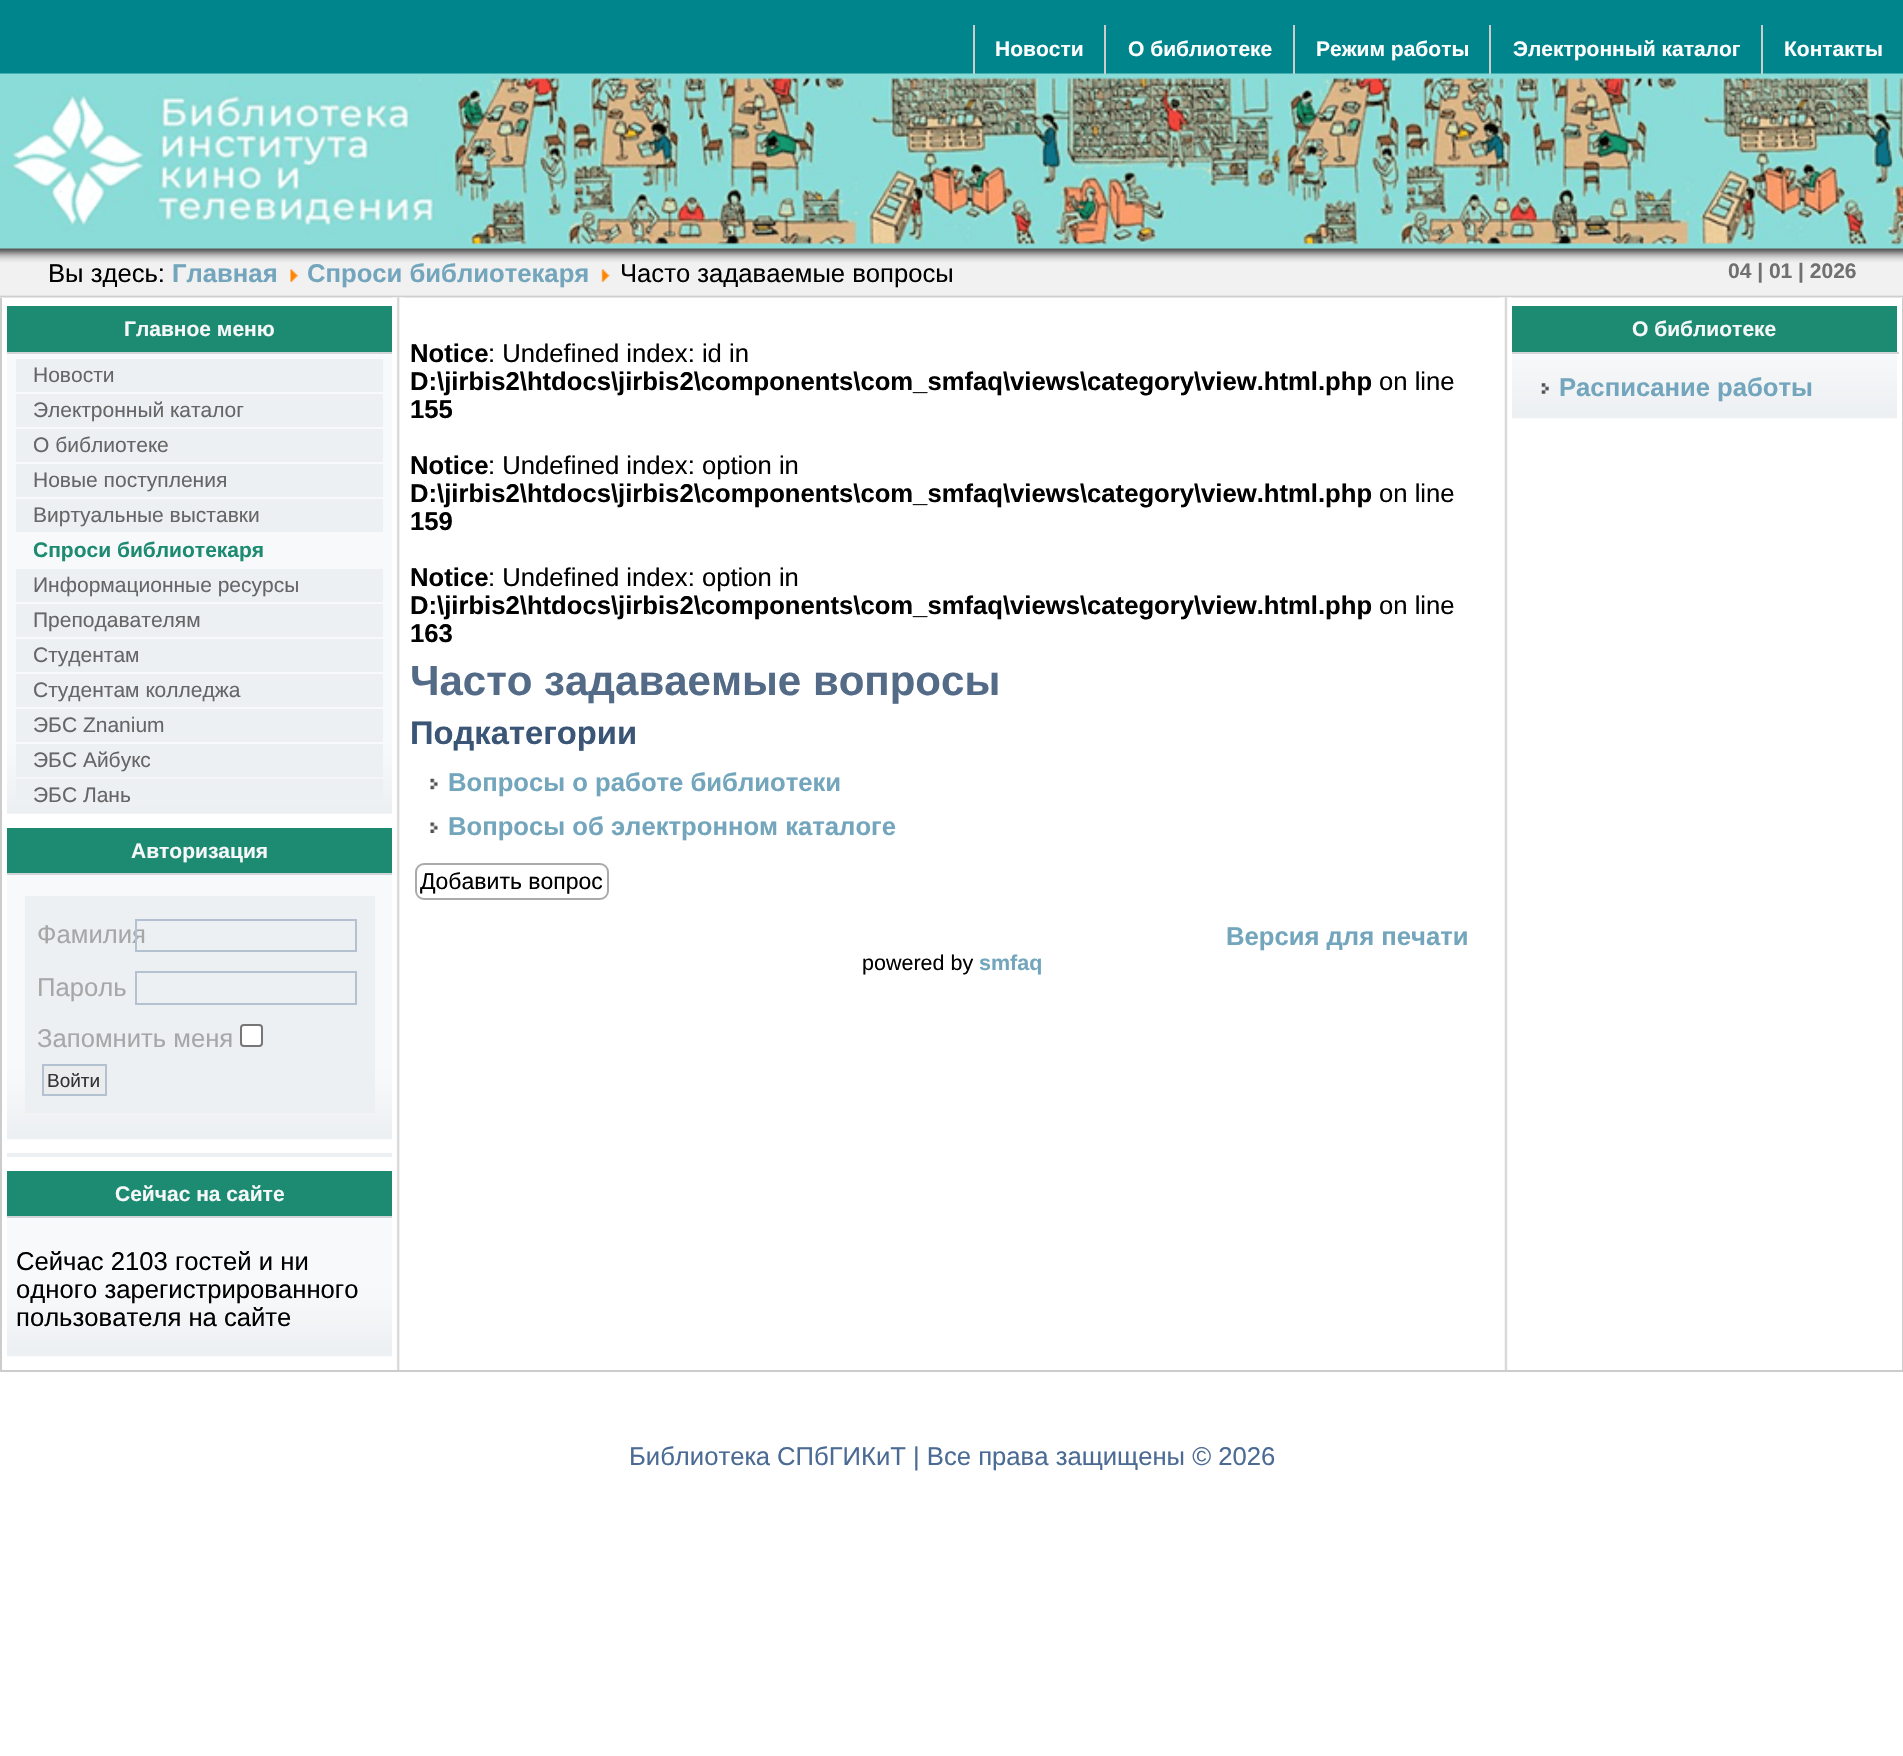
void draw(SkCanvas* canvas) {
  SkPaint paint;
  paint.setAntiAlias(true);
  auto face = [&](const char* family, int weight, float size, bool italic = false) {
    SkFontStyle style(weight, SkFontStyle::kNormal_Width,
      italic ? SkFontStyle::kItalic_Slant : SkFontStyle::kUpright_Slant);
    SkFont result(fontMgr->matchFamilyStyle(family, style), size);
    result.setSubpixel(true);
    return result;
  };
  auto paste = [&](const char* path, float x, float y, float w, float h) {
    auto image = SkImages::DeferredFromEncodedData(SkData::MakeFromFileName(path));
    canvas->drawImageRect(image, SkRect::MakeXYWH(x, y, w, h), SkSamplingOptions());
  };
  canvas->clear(0xffffffff);
  paint.setColor(0xff00858c);
  canvas->drawRect(SkRect::MakeXYWH(0, 0, 1903, 74), paint);
  paste("img/1.png", 0, 73, 1903, 174);
  {
    const struct { float x, y, w, h; SkColor color; } items[] = {
      {973, 25, 2, 49, 0xffcccccc},
      {1104, 25, 2, 49, 0xffcccccc},
      {1293, 25, 2, 49, 0xffcccccc},
      {1489, 25, 2, 49, 0xffcccccc},
      {1761, 25, 2, 49, 0xffcccccc},
      {0, 247, 1903, 2, 0xff8adcd8},
    };
    for (auto [x, y, w, h, color] : items) {
      paint.setColor(color);
      canvas->drawRect(SkRect::MakeXYWH(x, y, w, h), paint);
    }
  }
  paste("img/2.png", 0, 248, 1903, 50);
  paste("img/3.png", 290, 269, 8, 13);
  paste("img/4.png", 601, 269, 9, 13);
  paint.setColor(0xffcccccc);
  canvas->drawRect(SkRect::MakeXYWH(0, 298, 2, 1074), paint);
  paint.setColor(0xfff8f9fa);
  canvas->drawRect(SkRect::MakeXYWH(7, 354, 385, 460), paint);
  paste("img/5.png", 7, 740, 385, 74);
  {
    const struct { float x, y, w, h; SkColor color; } items[] = {
      {7, 306, 385, 46, 0xff1d8b72},
      {7, 352, 387, 2, 0xffd2d5d8},
      {16, 359, 367, 33, 0xffecf0f3},
      {16, 394, 367, 33, 0xffecf0f3},
      {16, 429, 367, 33, 0xffecf0f3},
      {16, 464, 367, 33, 0xffecf0f3},
      {16, 499, 367, 33, 0xffecf0f3},
      {16, 569, 367, 33, 0xffecf0f3},
      {16, 604, 367, 33, 0xffecf0f3},
      {16, 639, 367, 33, 0xffecf0f3},
      {16, 674, 367, 33, 0xffecf0f3},
      {16, 709, 367, 33, 0xffecf0f3},
      {16, 744, 367, 33, 0xffecf0f3},
      {16, 779, 367, 20, 0xffecf0f3},
      {7, 875, 385, 191, 0xfff8f9fa},
    };
    for (auto [x, y, w, h, color] : items) {
      paint.setColor(color);
      canvas->drawRect(SkRect::MakeXYWH(x, y, w, h), paint);
    }
  }
  paste("img/6.png", 7, 1065, 385, 75);
  {
    const struct { float x, y, w, h; SkColor color; } items[] = {
      {7, 828, 385, 45, 0xff1d8b72},
      {7, 873, 387, 2, 0xffd2d5d8},
      {25, 896, 350, 217, 0xffecf0f3},
    };
    for (auto [x, y, w, h, color] : items) {
      paint.setColor(color);
      canvas->drawRect(SkRect::MakeXYWH(x, y, w, h), paint);
    }
  }
  paint.setStroke(true);
  paint.setStrokeWidth(2);
  paint.setColor(0xffb4c1d1);
  canvas->drawRect(SkRect::MakeXYWH(136, 972, 220, 32), paint);
  paint.setStroke(false);
  paint.setColor(0xffffffff);
  canvas->drawRoundRect(SkRect::MakeXYWH(241, 1025, 21, 21), 3, 3, paint);
  paint.setStroke(true);
  paint.setColor(0xff767676);
  canvas->drawRoundRect(SkRect::MakeXYWH(241, 1025, 21, 21), 3, 3, paint);
  paint.setStroke(false);
  paint.setColor(0xffeaecee);
  canvas->drawRect(SkRect::MakeXYWH(43, 1065, 63, 30), paint);
  paint.setStroke(true);
  paint.setColor(0xffb4c1d1);
  canvas->drawRect(SkRect::MakeXYWH(43, 1065, 63, 30), paint);
  paint.setStroke(false);
  paint.setColor(0xffedf0f3);
  canvas->drawRect(SkRect::MakeXYWH(7, 1153, 385, 4), paint);
  paint.setColor(0xfff8f9fa);
  canvas->drawRect(SkRect::MakeXYWH(7, 1218, 385, 65), paint);
  paste("img/6.png", 7, 1282, 385, 75);
  paint.setColor(0xff1d8b72);
  canvas->drawRect(SkRect::MakeXYWH(7, 1171, 385, 45), paint);
  paint.setColor(0xffd2d5d8);
  canvas->drawRect(SkRect::MakeXYWH(7, 1216, 387, 2), paint);
  paste("img/7.png", 392, 297, 12, 1073);
  paste("img/8.png", 430, 778, 8, 12);
  paste("img/9.png", 430, 822, 8, 11);
  paint.setStroke(true);
  paint.setColor(0xffaaaaaa);
  canvas->drawRoundRect(SkRect::MakeXYWH(416, 864, 192, 35), 8, 8, paint);
  paste("img/10.png", 1500, 297, 12, 1073);
  paint.setStroke(false);
  paint.setColor(0xffcccccc);
  canvas->drawRect(SkRect::MakeXYWH(1902, 298, 1, 1074), paint);
  paste("img/11.png", 1512, 354, 385, 65);
  paint.setColor(0xff1d8b72);
  canvas->drawRect(SkRect::MakeXYWH(1512, 306, 385, 46), paint);
  paint.setColor(0xffd2d5d8);
  canvas->drawRect(SkRect::MakeXYWH(1512, 352, 387, 2), paint);
  paste("img/12.png", 1541, 383, 8, 11);
  paint.setColor(0xffcccccc);
  canvas->drawRect(SkRect::MakeXYWH(0, 1370, 1903, 2), paint);
  auto f0 = face("Liberation Sans", 700, 21);
  paint.setColor(0xffffffff);
  {
    const struct { const char* s; float x, y; } items[] = {
      {"Новости", 995, 56},
      {"О библиотеке", 1128, 56},
      {"Режим работы", 1316, 56},
      {"Электронный каталог", 1513, 56},
      {"Контакты", 1784, 56},
    };
    for (auto [s, x, y] : items) {
      canvas->drawString(s, x, y, f0, paint);
    }
  }
  auto f1 = face("Liberation Sans", 400, 25.65f);
  paint.setColor(0xff000000);
  canvas->drawString("Вы здесь:", 48, 282, f1, paint);
  auto f2 = face("Liberation Sans", 700, 25.65f);
  paint.setColor(0xff73a6bc);
  canvas->drawString("Главная", 172, 282, f2, paint);
  canvas->drawString("Спроси библиотекаря", 307, 282, f2, paint);
  paint.setColor(0xff000000);
  canvas->drawString("Часто задаваемые вопросы", 620, 282, f1, paint);
  paint.setColor(0xff707070);
  canvas->drawString("04 | 01 | 2026", 1728, 278, f0, paint);
  paint.setColor(0xfff6f7f9);
  canvas->drawString("Главное меню", 124, 336, f0, paint);
  auto f3 = face("Liberation Sans", 400, 21);
  paint.setColor(0xff666666);
  {
    const struct { const char* s; float x, y; } items[] = {
      {"Новости", 33, 382},
      {"Электронный каталог", 33, 417},
      {"О библиотеке", 33, 452},
      {"Новые поступления", 33, 487},
      {"Виртуальные выставки", 33, 522},
    };
    for (auto [s, x, y] : items) {
      canvas->drawString(s, x, y, f3, paint);
    }
  }
  paint.setColor(0xff1d8b72);
  canvas->drawString("Спроси библиотекаря", 33, 557, f0, paint);
  paint.setColor(0xff666666);
  {
    const struct { const char* s; float x, y; } items[] = {
      {"Информационные ресурсы", 33, 592},
      {"Преподавателям", 33, 627},
      {"Студентам", 33, 662},
      {"Студентам колледжа", 33, 697},
      {"ЭБС Znanium", 33, 732},
      {"ЭБС Айбукс", 33, 767},
      {"ЭБС Лань", 33, 802},
    };
    for (auto [s, x, y] : items) {
      canvas->drawString(s, x, y, f3, paint);
    }
  }
  paint.setColor(0xfff6f7f9);
  canvas->drawString("Авторизация", 131, 858, f0, paint);
  paint.setColor(0xffa7a7a7);
  canvas->drawString("Фамилия", 37, 943, f1, paint);
  paint.setStroke(true);
  paint.setColor(0xffb4c1d1);
  canvas->drawRect(SkRect::MakeXYWH(136, 920, 220, 31), paint);
  paint.setStroke(false);
  paint.setColor(0xffa7a7a7);
  canvas->drawString("Пароль", 37, 996, f1, paint);
  canvas->drawString("Запомнить меня", 37, 1047, f1, paint);
  auto f4 = face("Liberation Sans", 400, 19);
  paint.setColor(0xff333333);
  canvas->drawString("Войти", 47, 1087, f4, paint);
  paint.setColor(0xfff6f7f9);
  canvas->drawString("Сейчас на сайте", 115, 1201, f0, paint);
  paint.setColor(0xff000000);
  {
    const struct { const char* s; float x, y; } items[] = {
      {"Сейчас 2103 гостей и ни", 16, 1270},
      {"одного зарегистрированного", 16, 1298},
      {"пользователя на сайте", 16, 1326},
    };
    for (auto [s, x, y] : items) {
      canvas->drawString(s, x, y, f1, paint);
    }
  }
  canvas->drawString("Notice", 410, 362, f2, paint);
  canvas->drawString(": Undefined index: id in", 488, 362, f1, paint);
  canvas->drawString("D:\\jirbis2\\htdocs\\jirbis2\\components\\com_smfaq\\views\\category\\view.html.php", 410, 390, f2, paint);
  canvas->drawString("on line", 1379, 390, f1, paint);
  canvas->drawString("155", 410, 418, f2, paint);
  canvas->drawString("Notice", 410, 474, f2, paint);
  canvas->drawString(": Undefined index: option in", 488, 474, f1, paint);
  canvas->drawString("D:\\jirbis2\\htdocs\\jirbis2\\components\\com_smfaq\\views\\category\\view.html.php", 410, 502, f2, paint);
  canvas->drawString("on line", 1379, 502, f1, paint);
  canvas->drawString("159", 410, 530, f2, paint);
  canvas->drawString("Notice", 410, 586, f2, paint);
  canvas->drawString(": Undefined index: option in", 488, 586, f1, paint);
  canvas->drawString("D:\\jirbis2\\htdocs\\jirbis2\\components\\com_smfaq\\views\\category\\view.html.php", 410, 614, f2, paint);
  canvas->drawString("on line", 1379, 614, f1, paint);
  canvas->drawString("163", 410, 642, f2, paint);
  auto f5 = face("Liberation Sans", 700, 42);
  paint.setColor(0xff546b88);
  canvas->drawString("Часто задаваемые вопросы", 410, 695, f5, paint);
  auto f6 = face("Liberation Sans", 700, 32.75f);
  paint.setColor(0xff3b5576);
  canvas->drawString("Подкатегории", 410, 744, f6, paint);
  paint.setColor(0xff73a6bc);
  canvas->drawString("Вопросы о работе библиотеки", 448, 791, f2, paint);
  canvas->drawString("Вопросы об электронном каталоге", 448, 835, f2, paint);
  auto f7 = face("Liberation Sans", 400, 23);
  paint.setColor(0xff000000);
  canvas->drawString("Добавить вопрос", 420, 889, f7, paint);
  paint.setColor(0xff73a6bc);
  canvas->drawString("Версия для печати", 1226, 945, f2, paint);
  auto f8 = face("Liberation Sans", 400, 21.5f);
  paint.setColor(0xff000000);
  canvas->drawString("powered by", 862, 970, f8, paint);
  auto f9 = face("Liberation Sans", 700, 21.5f);
  paint.setColor(0xff73a6bc);
  canvas->drawString("smfaq", 979, 970, f9, paint);
  paint.setColor(0xfff6f7f9);
  canvas->drawString("О библиотеке", 1632, 336, f0, paint);
  paint.setColor(0xff73a6bc);
  canvas->drawString("Расписание работы", 1559, 396, f2, paint);
  paint.setColor(0xff4b6b94);
  canvas->drawString("Библиотека СПбГИКиТ | Все права защищены © 2026", 629, 1465, f1, paint);
}
